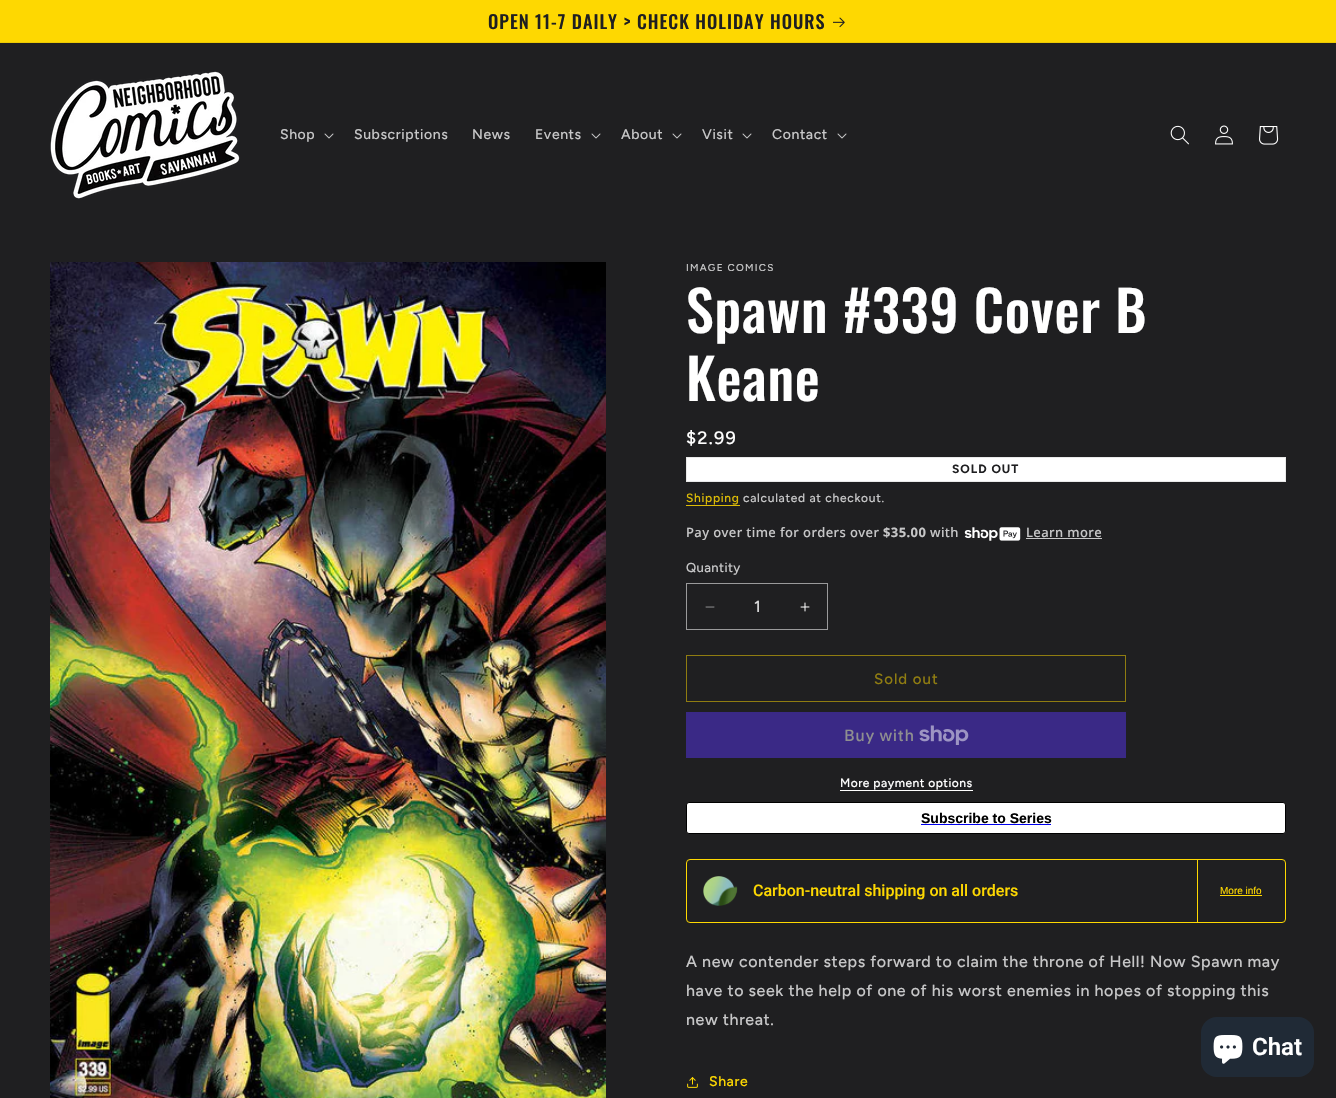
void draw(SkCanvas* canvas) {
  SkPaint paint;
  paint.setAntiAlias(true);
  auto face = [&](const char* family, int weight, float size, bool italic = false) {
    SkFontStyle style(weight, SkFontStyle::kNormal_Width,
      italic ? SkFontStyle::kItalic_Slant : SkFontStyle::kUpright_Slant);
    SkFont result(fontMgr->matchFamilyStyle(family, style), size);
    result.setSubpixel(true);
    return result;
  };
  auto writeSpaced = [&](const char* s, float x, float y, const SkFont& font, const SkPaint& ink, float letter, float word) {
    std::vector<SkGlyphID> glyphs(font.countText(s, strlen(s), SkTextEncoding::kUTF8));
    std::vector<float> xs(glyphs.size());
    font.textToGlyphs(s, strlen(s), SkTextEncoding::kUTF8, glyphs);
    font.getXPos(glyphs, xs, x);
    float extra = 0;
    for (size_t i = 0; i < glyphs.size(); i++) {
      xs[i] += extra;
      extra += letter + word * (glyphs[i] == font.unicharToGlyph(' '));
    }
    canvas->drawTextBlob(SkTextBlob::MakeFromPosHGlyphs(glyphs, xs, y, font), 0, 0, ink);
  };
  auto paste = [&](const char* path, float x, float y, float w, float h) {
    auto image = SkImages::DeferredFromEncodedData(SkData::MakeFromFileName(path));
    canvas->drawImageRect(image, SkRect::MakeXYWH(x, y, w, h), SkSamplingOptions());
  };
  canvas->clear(0xff1f1f21);
  paint.setColor(0xfffed801);
  canvas->drawRect(SkRect::MakeXYWH(0, 0, 1336, 42), paint);
  paint.setColor(0xffecc904);
  canvas->drawRect(SkRect::MakeXYWH(0, 42, 1336, 1), paint);
  paste("img/1.png", 833, 17, 12, 11);
  paste("img/2.png", 50, 71, 190, 128);
  paste("img/3.png", 324, 133, 10, 6);
  paste("img/3.png", 591, 133, 10, 6);
  paste("img/3.png", 672, 133, 10, 6);
  paste("img/3.png", 742, 133, 10, 6);
  paste("img/3.png", 837, 133, 10, 6);
  paste("img/4.png", 1170, 125, 19, 20);
  paste("img/5.png", 1215, 125, 18, 20);
  paste("img/6.png", 1259, 126, 20, 19);
  paste("img/7.png", 50, 262, 556, 836);
  paint.setColor(0xffffffff);
  canvas->drawRect(SkRect::MakeXYWH(686.5f, 457.5f, 599, 24), paint);
  paint.setStroke(true);
  paint.setStrokeWidth(1);
  paint.setColor(0xffe9e9e9);
  canvas->drawRect(SkRect::MakeXYWH(686.5f, 457.5f, 599, 24), paint);
  paint.setStroke(false);
  paint.setColor(0xffddbc06);
  canvas->drawRect(SkRect::MakeXYWH(686, 505, 54, 1), paint);
  paste("img/8.png", 964, 527, 57, 14);
  paint.setColor(0xffc7c7c8);
  canvas->drawRect(SkRect::MakeXYWH(1026, 538, 76, 1), paint);
  paste("img/9.png", 705, 606, 10, 2);
  paste("img/10.png", 800, 602, 10, 10);
  paint.setStroke(true);
  paint.setColor(0xff9a9a9b);
  canvas->drawRect(SkRect::MakeXYWH(686.5f, 583.5f, 141, 46), paint);
  paint.setColor(0xff8f7c11);
  canvas->drawRect(SkRect::MakeXYWH(686.5f, 655.5f, 439, 46), paint);
  paint.setStroke(false);
  paint.setColor(0xff3a2986);
  canvas->drawRect(SkRect::MakeXYWH(686, 712, 440, 46), paint);
  paste("img/11.png", 919, 725, 50, 20);
  paint.setColor(0xffffffff);
  canvas->drawRect(SkRect::MakeXYWH(840, 790, 133, 1), paint);
  canvas->drawRoundRect(SkRect::MakeXYWH(686.5f, 802.5f, 599, 31), 2.5f, 2.5f, paint);
  paint.setStroke(true);
  paint.setColor(0xff000000);
  canvas->drawRoundRect(SkRect::MakeXYWH(686.5f, 802.5f, 599, 31), 2.5f, 2.5f, paint);
  paint.setStroke(false);
  paint.setColor(0xff0000ee);
  canvas->drawRect(SkRect::MakeXYWH(921, 824, 130, 1), paint);
  paint.setStroke(true);
  paint.setColor(0xfffed801);
  canvas->drawRoundRect(SkRect::MakeXYWH(686.5f, 859.5f, 599, 63), 3.5f, 3.5f, paint);
  paint.setStroke(false);
  canvas->drawRect(SkRect::MakeXYWH(1197, 860, 1, 62), paint);
  paste("img/12.png", 703, 876, 35, 30);
  canvas->drawRect(SkRect::MakeXYWH(1220, 895, 42, 1), paint);
  paste("img/13.png", 687, 1077, 11, 11);
  paint.setColor(0xff202a36);
  canvas->drawRoundRect(SkRect::MakeXYWH(1201, 1017, 113, 60), 16, 16, paint);
  paste("img/14.png", 1213, 1035, 30, 29);
  auto f0 = face("Oswald", 500, 18.25f);
  paint.setColor(0xff1f1f21);
  writeSpaced("OPEN 11-7 DAILY > CHECK HOLIDAY HOURS", 488, 29, f0, paint, 1, 0);
  auto f1 = face("Figtree", 500, 14);
  paint.setColor(0xffc7c7c8);
  {
    const struct { const char* s; float x, y; } items[] = {
      {"Shop", 280, 139},
      {"Subscriptions", 354, 139},
      {"News", 472, 139},
      {"Events", 535, 139},
      {"About", 621, 139},
      {"Visit", 702, 139},
      {"Contact", 772, 139},
    };
    for (auto [s, x, y] : items) {
      writeSpaced(s, x, y, f1, paint, 0.6f, 0);
    }
  }
  auto f2 = face("Figtree", 500, 10);
  writeSpaced("IMAGE COMICS", 686, 271, f2, paint, 1.25f, 0);
  auto f3 = face("Oswald", 500, 56);
  paint.setColor(0xffffffff);
  writeSpaced("Spawn #339 Cover B", 686, 333, f3, paint, 0.8f, 0);
  writeSpaced("Keane", 686, 401, f3, paint, 0.8f, 0);
  auto f4 = face("Figtree", 500, 18);
  writeSpaced("$2.99", 686, 444, f4, paint, 1.25f, 0);
  auto f5 = face("Figtree", 700, 12);
  paint.setColor(0xff1f1f21);
  writeSpaced("SOLD OUT", 952, 473, f5, paint, 1, 0);
  auto f6 = face("Figtree", 500, 12);
  paint.setColor(0xffddbc06);
  writeSpaced("Shipping", 686, 502, f6, paint, 0.7f, 0);
  paint.setColor(0xffc7c7c8);
  writeSpaced("calculated at checkout.", 743, 502, f6, paint, 0.7f, 0);
  auto f7 = face("Noto Sans", 500, 13);
  writeSpaced("Pay over time for orders over", 686, 537, f7, paint, 0.4f, 0);
  auto f8 = face("Noto Sans", 700, 13);
  writeSpaced("$35.00", 883, 537, f8, paint, 0.4f, 0);
  writeSpaced("with", 930, 537, f7, paint, 0.4f, 0);
  writeSpaced("Learn more", 1026, 537, f7, paint, 0.4f, 0);
  auto f9 = face("Figtree", 500, 13);
  writeSpaced("Quantity", 686, 572, f9, paint, 0.4f, 0);
  auto f10 = face("Figtree", 500, 16);
  paint.setColor(0xffddddde);
  canvas->drawString("1", 754, 612, f10, paint);
  auto f11 = face("Figtree", 500, 15);
  paint.setColor(0xff8f7c11);
  writeSpaced("Sold out", 874, 684, f11, paint, 1, 0);
  auto f12 = face("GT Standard", 500, 16);
  paint.setColor(0xff8f8f90);
  writeSpaced("Buy with", 844, 741, f12, paint, 0.6f, 0);
  paint.setColor(0xffffffff);
  writeSpaced("More payment options", 840, 787, f6, paint, 0.5f, 0);
  auto f13 = face("Liberation Sans", 700, 14);
  paint.setColor(0xff000000);
  canvas->drawString("Subscribe to Series", 921, 823, f13, paint);
  auto f14 = face("Roboto", 500, 16);
  paint.setColor(0xfffed801);
  canvas->drawString("Carbon-neutral shipping on all orders", 753, 896, f14, paint);
  auto f15 = face("Liberation Sans", 400, 10);
  canvas->drawString("More info", 1220, 894, f15, paint);
  paint.setColor(0xffc7c7c8);
  {
    const struct { const char* s; float x, y; } items[] = {
      {"A new contender steps forward to claim the throne of Hell! Now Spawn may", 686, 967},
      {"have to seek the help of one of his worst enemies in hopes of stopping this", 686, 996},
      {"new threat.", 686, 1025},
    };
    for (auto [s, x, y] : items) {
      writeSpaced(s, x, y, f10, paint, 0.6f, 0);
    }
  }
  paint.setColor(0xfffed801);
  writeSpaced("Share", 709, 1086, f1, paint, 0.6f, 0);
  auto f16 = face("Roboto", 600, 24);
  paint.setColor(0xffffffff);
  canvas->drawString("Chat", 1252, 1055, f16, paint);
}
